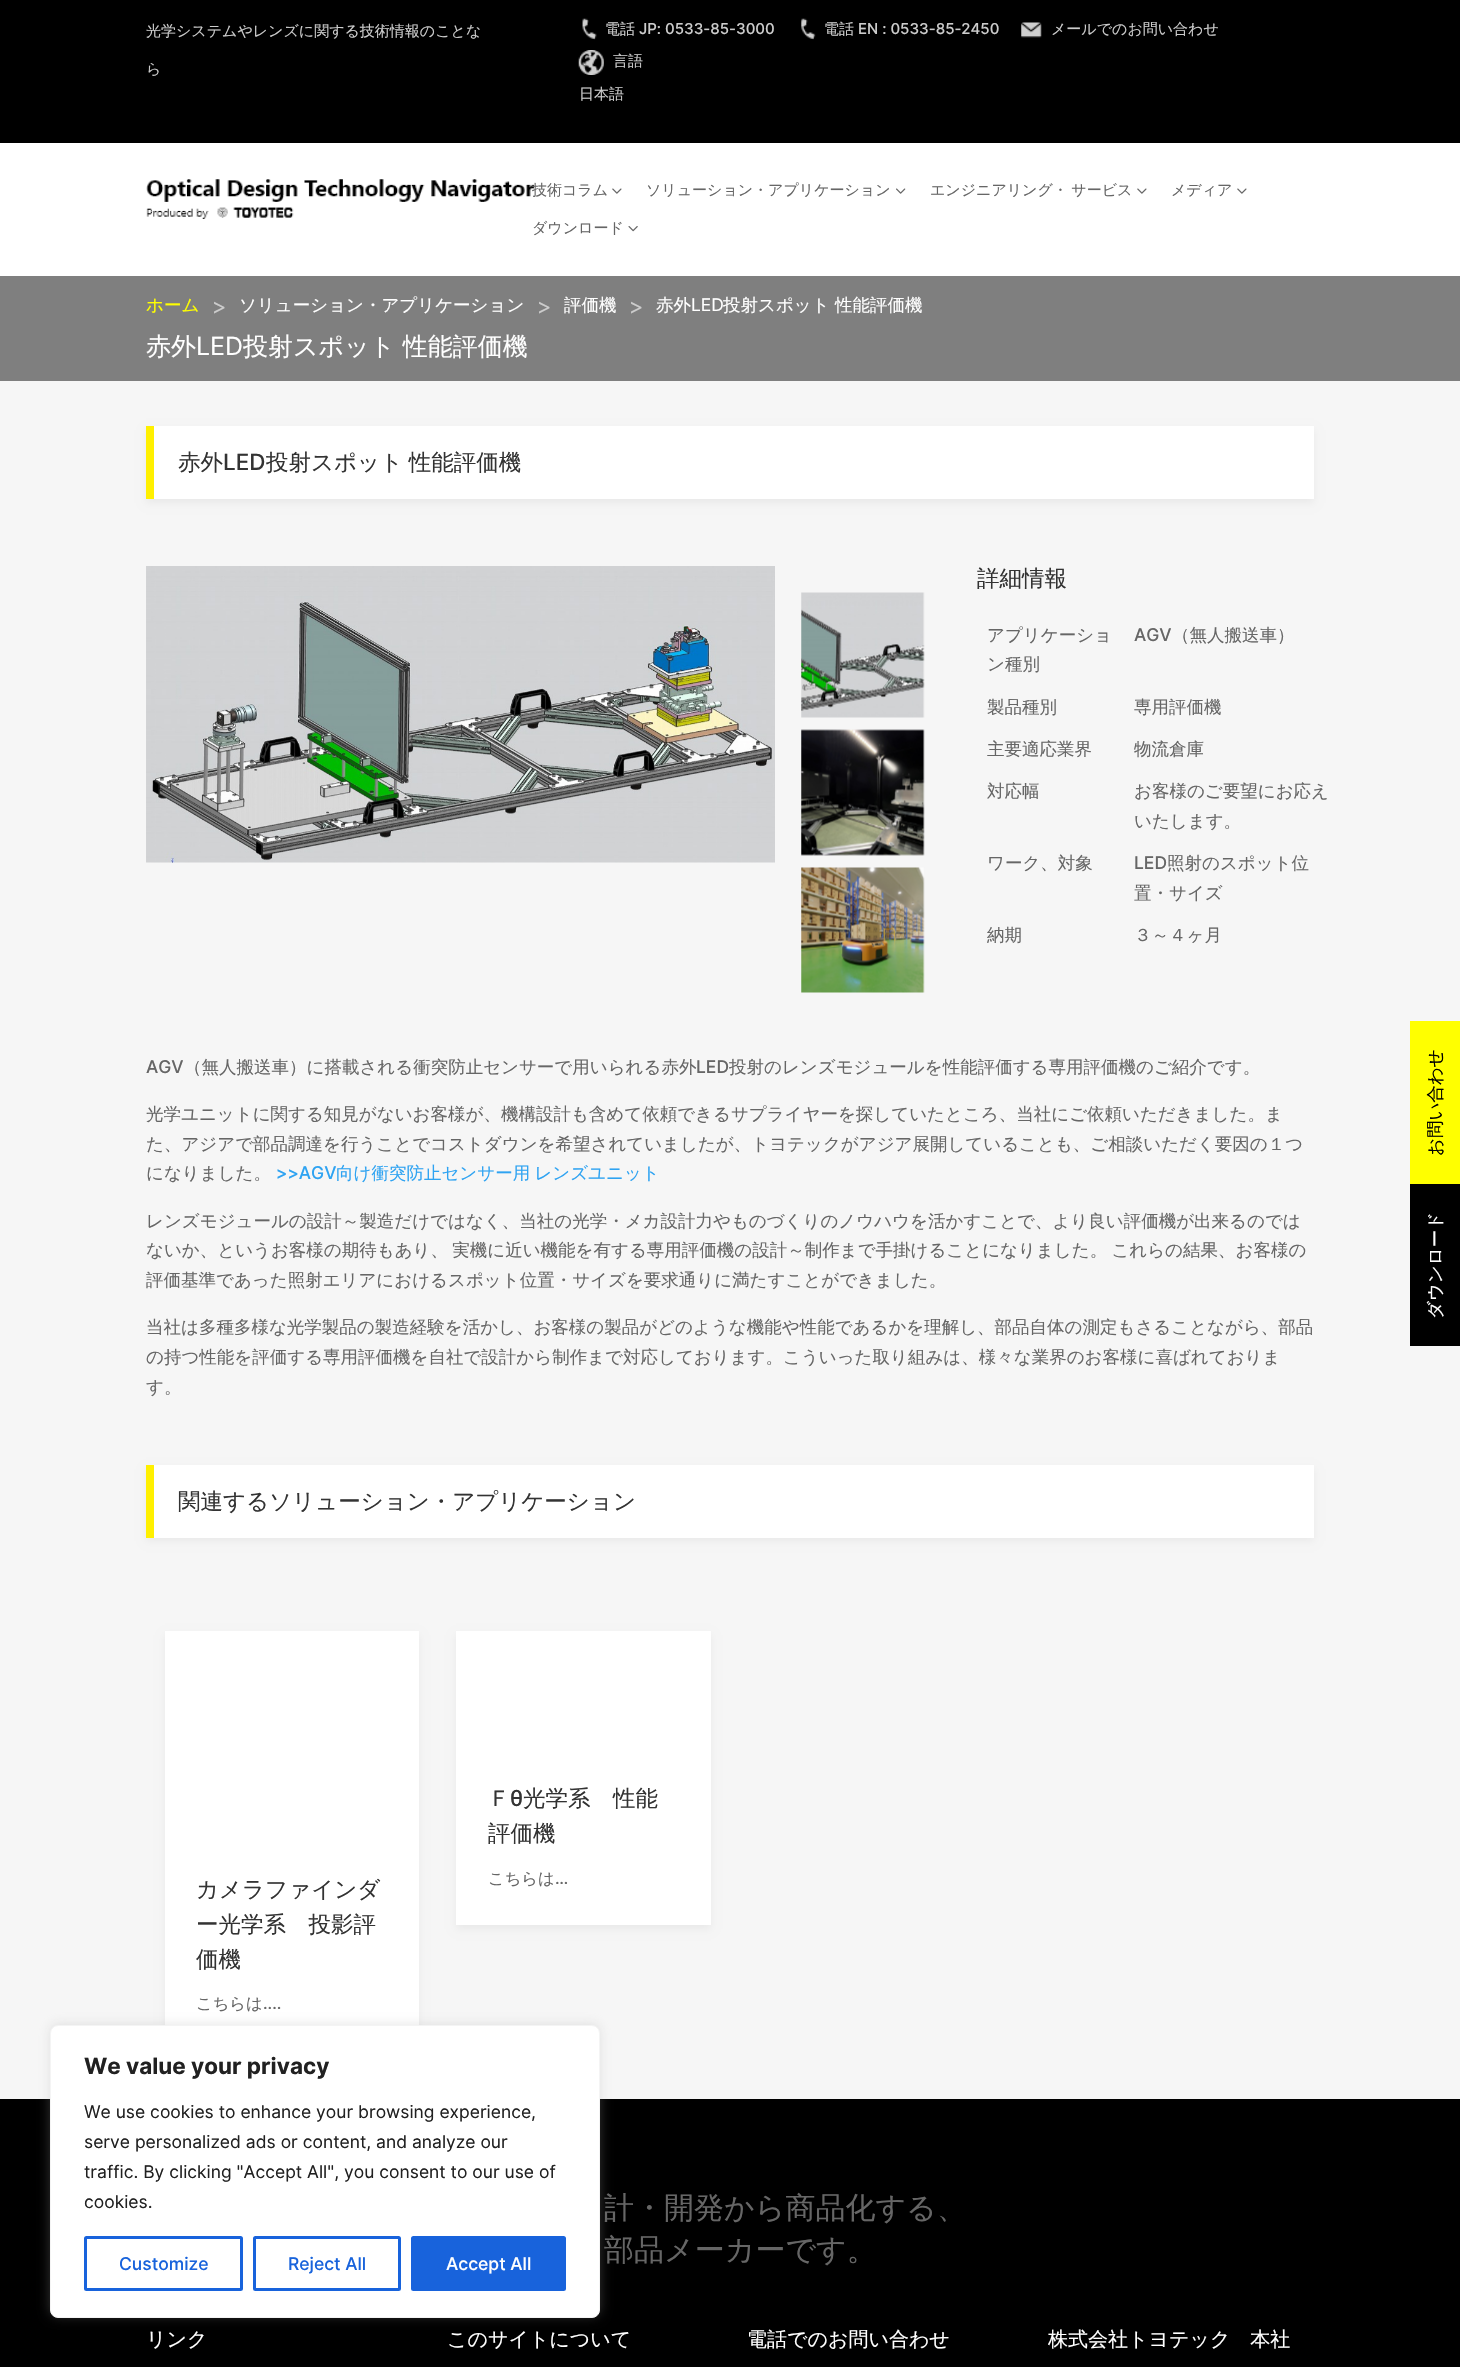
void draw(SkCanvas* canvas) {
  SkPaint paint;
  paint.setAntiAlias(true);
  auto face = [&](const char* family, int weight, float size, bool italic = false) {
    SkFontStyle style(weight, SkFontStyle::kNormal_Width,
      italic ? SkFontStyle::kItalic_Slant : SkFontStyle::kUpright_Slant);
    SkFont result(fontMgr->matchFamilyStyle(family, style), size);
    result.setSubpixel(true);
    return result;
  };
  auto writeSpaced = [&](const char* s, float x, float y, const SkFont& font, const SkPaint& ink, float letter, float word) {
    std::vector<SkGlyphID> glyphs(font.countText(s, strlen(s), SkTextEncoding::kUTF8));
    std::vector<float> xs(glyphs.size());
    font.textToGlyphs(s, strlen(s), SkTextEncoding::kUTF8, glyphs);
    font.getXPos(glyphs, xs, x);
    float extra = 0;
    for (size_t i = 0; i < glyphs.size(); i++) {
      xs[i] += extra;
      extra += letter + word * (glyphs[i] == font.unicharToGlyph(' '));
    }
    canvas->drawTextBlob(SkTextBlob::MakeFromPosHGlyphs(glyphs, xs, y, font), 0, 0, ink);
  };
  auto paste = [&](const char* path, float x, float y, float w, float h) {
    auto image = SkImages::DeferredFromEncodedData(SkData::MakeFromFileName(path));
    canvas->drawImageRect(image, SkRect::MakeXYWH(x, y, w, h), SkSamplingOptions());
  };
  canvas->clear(0xffffffff);
  paint.setColor(0xff000000);
  canvas->drawRect(SkRect::MakeXYWH(0, 0, 1460, 143), paint);
  paste("img/1.png", 582, 18, 15, 22);
  paste("img/2.png", 801, 18, 15, 22);
  paste("img/3.png", 1021, 22, 21, 16);
  paste("img/4.png", 578, 50, 26, 25);
  paste("img/5.png", 146, 179, 388, 40);
  paste("img/6.png", 612, 188, 10, 6);
  paste("img/7.png", 896, 188, 10, 6);
  paste("img/6.png", 1137, 188, 10, 6);
  paste("img/6.png", 1237, 188, 10, 6);
  paste("img/8.png", 628, 226, 10, 6);
  paint.setColor(0xfff6f6f6);
  canvas->drawRect(SkRect::MakeXYWH(0, 381, 1460, 1718), paint);
  paint.setColor(0xff7f7f7f);
  canvas->drawRect(SkRect::MakeXYWH(0, 276, 1460, 105), paint);
  paint.setColor(0x0d000000);
  paint.setMaskFilter(SkMaskFilter::MakeBlur(kNormal_SkBlurStyle, 4));
  canvas->drawRect(SkRect::MakeXYWH(146, 430, 1168, 73), paint);
  paint.setMaskFilter(nullptr);
  paint.setColor(0xffffffff);
  canvas->drawRect(SkRect::MakeXYWH(154, 426, 1160, 73), paint);
  paint.setColor(0xfffff000);
  canvas->drawRect(SkRect::MakeXYWH(146, 426, 8, 73), paint);
  paste("img/9.png", 146, 566, 629, 297);
  paste("img/10.png", 801, 592, 124, 126);
  paste("img/11.png", 801, 729, 124, 127);
  paste("img/12.png", 801, 867, 124, 126);
  paint.setColor(0x0d000000);
  paint.setMaskFilter(SkMaskFilter::MakeBlur(kNormal_SkBlurStyle, 4));
  canvas->drawRect(SkRect::MakeXYWH(146, 1469, 1168, 72), paint);
  paint.setMaskFilter(nullptr);
  paint.setColor(0xffffffff);
  canvas->drawRect(SkRect::MakeXYWH(154, 1465, 1160, 73), paint);
  paint.setColor(0xfffff000);
  canvas->drawRect(SkRect::MakeXYWH(146, 1465, 8, 73), paint);
  paint.setColor(0x0d000000);
  paint.setMaskFilter(SkMaskFilter::MakeBlur(kNormal_SkBlurStyle, 4));
  canvas->drawRect(SkRect::MakeXYWH(456, 1635, 255, 294), paint);
  paint.setMaskFilter(nullptr);
  paint.setColor(0xffffffff);
  canvas->drawRect(SkRect::MakeXYWH(456, 1631, 255, 294), paint);
  paint.setColor(0x0d000000);
  paint.setMaskFilter(SkMaskFilter::MakeBlur(kNormal_SkBlurStyle, 4));
  canvas->drawRect(SkRect::MakeXYWH(165, 1635, 254, 419), paint);
  paint.setMaskFilter(nullptr);
  {
    const struct { float x, y, w, h; SkColor color; } items[] = {
      {165, 1631, 254, 394, 0xffffffff},
      {0, 2099, 1460, 268, 0xff000000},
      {1410, 1021, 50, 163, 0xffffff00},
      {1410, 1184, 50, 162, 0xff000000},
    };
    for (auto [x, y, w, h, color] : items) {
      paint.setColor(color);
      canvas->drawRect(SkRect::MakeXYWH(x, y, w, h), paint);
    }
  }
  paint.setColor(0x4dacabab);
  paint.setMaskFilter(SkMaskFilter::MakeBlur(kNormal_SkBlurStyle, 6));
  canvas->drawRoundRect(SkRect::MakeXYWH(50, 2024, 550, 292), 8, 8, paint);
  paint.setMaskFilter(nullptr);
  paint.setColor(0xffffffff);
  canvas->drawRoundRect(SkRect::MakeXYWH(50.5f, 2025.5f, 549, 292), 7.5f, 7.5f, paint);
  paint.setStroke(true);
  paint.setStrokeWidth(1);
  paint.setColor(0xfff4f4f4);
  canvas->drawRoundRect(SkRect::MakeXYWH(50.5f, 2025.5f, 549, 292), 7.5f, 7.5f, paint);
  paint.setStrokeWidth(3);
  paint.setColor(0xff1863dc);
  canvas->drawRoundRect(SkRect::MakeXYWH(85.5f, 2237.5f, 156, 52), 1, 1, paint);
  canvas->drawRoundRect(SkRect::MakeXYWH(254.5f, 2237.5f, 145, 52), 1, 1, paint);
  paint.setStroke(false);
  canvas->drawRoundRect(SkRect::MakeXYWH(412.5f, 2237.5f, 152, 52), 1, 1, paint);
  paint.setStroke(true);
  canvas->drawRoundRect(SkRect::MakeXYWH(412.5f, 2237.5f, 152, 52), 1, 1, paint);
  auto f0 = face("WenQuanYi Zen Hei", 500, 15);
  paint.setStroke(false);
  paint.setColor(0xffcccccc);
  {
    const struct { const char* s; float x, y; } items[] = {
      {"光学システムやレンズに関する技術情報のことな", 146, 36},
      {"ら", 146, 74},
      {"電話", 605, 34},
    };
    for (auto [s, x, y] : items) {
      canvas->drawString(s, x, y, f0, paint);
    }
  }
  auto f1 = face("Inter", 500, 15);
  canvas->drawString("JP: 0533-85-3000", 639, 34, f1, paint);
  canvas->drawString("電話", 824, 34, f0, paint);
  canvas->drawString("EN : 0533-85-2450", 858, 34, f1, paint);
  {
    const struct { const char* s; float x, y; } items[] = {
      {"メールでのお問い合わせ", 1051, 34},
      {"言語", 613, 66},
      {"日本語", 579, 99},
    };
    for (auto [s, x, y] : items) {
      canvas->drawString(s, x, y, f0, paint);
    }
  }
  paint.setColor(0xff666666);
  canvas->drawString("技術コラム", 532, 195, f0, paint);
  canvas->drawString("ソリューション・アプリケーション", 646, 195, f0, paint);
  writeSpaced("エンジニアリング・ サービス", 930, 195, f0, paint, 0, -1);
  canvas->drawString("メディア", 1171, 195, f0, paint);
  canvas->drawString("ダウンロード", 532, 233, f0, paint);
  auto f2 = face("WenQuanYi Zen Hei", 500, 17.5f);
  paint.setColor(0xffffff00);
  canvas->drawString("ホーム", 146, 311, f2, paint);
  auto f3 = face("Inter", 400, 22.5f);
  paint.setColor(0xffcccccc);
  canvas->drawString(">", 212, 314, f3, paint);
  paint.setColor(0xffffffff);
  canvas->drawString("ソリューション・アプリケーション", 239, 311, f2, paint);
  paint.setColor(0xffcccccc);
  canvas->drawString(">", 537, 314, f3, paint);
  paint.setColor(0xffffffff);
  canvas->drawString("評価機", 564, 311, f2, paint);
  paint.setColor(0xffcccccc);
  canvas->drawString(">", 629, 314, f3, paint);
  paint.setColor(0xffffffff);
  canvas->drawString("赤外", 656, 311, f2, paint);
  auto f4 = face("Inter", 400, 17.5f);
  canvas->drawString("LED", 691, 311, f4, paint);
  canvas->drawString("投射スポット 性能評価機", 723, 311, f2, paint);
  auto f5 = face("WenQuanYi Zen Hei", 500, 25);
  canvas->drawString("赤外", 146, 355, f5, paint);
  auto f6 = face("Inter", 400, 25);
  canvas->drawString("LED", 196, 355, f6, paint);
  canvas->drawString("投射スポット 性能評価機", 243, 355, f5, paint);
  auto f7 = face("WenQuanYi Zen Hei", 500, 22.5f);
  paint.setColor(0xff333333);
  canvas->drawString("赤外", 178, 470, f7, paint);
  auto f8 = face("Inter", 500, 22.5f);
  canvas->drawString("LED", 223, 470, f8, paint);
  writeSpaced("投射スポット 性能評価機", 266, 470, f7, paint, 0, -1);
  canvas->drawString("詳細情報", 977, 586, f7, paint);
  paint.setColor(0xff666666);
  canvas->drawString("アプリケーショ", 987, 641, f2, paint);
  canvas->drawString("ン種別", 987, 670, f2, paint);
  auto f9 = face("Inter", 500, 17.5f);
  canvas->drawString("AGV", 1134, 641, f9, paint);
  {
    const struct { const char* s; float x, y; } items[] = {
      {"（無人搬送車）", 1172, 641},
      {"製品種別", 987, 713},
      {"専用評価機", 1134, 713},
      {"主要適応業界", 987, 755},
      {"物流倉庫", 1134, 755},
      {"対応幅", 987, 797},
      {"お客様のご要望にお応え", 1134, 797},
      {"いたします。", 1134, 827},
      {"ワーク、対象", 987, 869},
    };
    for (auto [s, x, y] : items) {
      canvas->drawString(s, x, y, f2, paint);
    }
  }
  canvas->drawString("LED", 1134, 869, f9, paint);
  {
    const struct { const char* s; float x, y; } items[] = {
      {"照射のスポット位", 1167, 869},
      {"置・サイズ", 1134, 899},
      {"納期", 987, 941},
      {"３～４ヶ月", 1134, 941},
    };
    for (auto [s, x, y] : items) {
      canvas->drawString(s, x, y, f2, paint);
    }
  }
  canvas->drawString("AGV", 146, 1073, f9, paint);
  canvas->drawString("（無人搬送車）に搭載される衝突防止センサーで用いられる赤外", 184, 1073, f2, paint);
  canvas->drawString("LED", 696, 1073, f9, paint);
  {
    const struct { const char* s; float x, y; } items[] = {
      {"投射のレンズモジュールを性能評価する専用評価機のご紹介です。", 729, 1073},
      {"光学ユニットに関する知見がないお客様が、機構設計も含めて依頼できるサプライヤーを探していたところ、当社にご依頼いただきました。ま", 146, 1120},
      {"た、アジアで部品調達を行うことでコストダウンを希望されていましたが、トヨテックがアジア展開していることも、ご相談いただく要因の１つ", 146, 1150},
      {"になりました。", 146, 1179},
    };
    for (auto [s, x, y] : items) {
      canvas->drawString(s, x, y, f2, paint);
    }
  }
  paint.setColor(0xff2ea3f2);
  canvas->drawString(">>AGV", 276, 1179, f9, paint);
  writeSpaced("向け衝突防止センサー用 レンズユニット", 336, 1179, f2, paint, 0, -1);
  paint.setColor(0xff666666);
  canvas->drawString("レンズモジュールの設計～製造だけではなく、当社の光学・メカ設計力やものづくりのノウハウを活かすことで、より良い評価機が出来るのでは", 146, 1227, f2, paint);
  writeSpaced("ないか、というお客様の期待もあり、 実機に近い機能を有する専用評価機の設計～制作まで手掛けることになりました。 これらの結果、お客様の", 146, 1256, f2, paint, 0, -1);
  {
    const struct { const char* s; float x, y; } items[] = {
      {"評価基準であった照射エリアにおけるスポット位置・サイズを要求通りに満たすことができました。", 146, 1286},
      {"当社は多種多様な光学製品の製造経験を活かし、お客様の製品がどのような機能や性能であるかを理解し、部品自体の測定もさることながら、部品", 146, 1333},
      {"の持つ性能を評価する専用評価機を自社で設計から制作まで対応しております。こういった取り組みは、様々な業界のお客様に喜ばれておりま", 146, 1363},
      {"す。", 146, 1393},
    };
    for (auto [s, x, y] : items) {
      canvas->drawString(s, x, y, f2, paint);
    }
  }
  paint.setColor(0xff333333);
  canvas->drawString("関連するソリューション・アプリケーション", 178, 1509, f7, paint);
  canvas->drawString("Ｆ", 488, 1806, f7, paint);
  canvas->drawString("θ", 510, 1806, f8, paint);
  canvas->drawString("光学系　性能", 523, 1806, f7, paint);
  canvas->drawString("評価機", 488, 1841, f7, paint);
  auto f10 = face("WenQuanYi Zen Hei", 500, 16.25f);
  paint.setColor(0xff666666);
  canvas->drawString("こちらは", 488, 1884, f10, paint);
  auto f11 = face("Inter", 500, 16.25f);
  canvas->drawString("…", 555, 1884, f11, paint);
  paint.setColor(0xff333333);
  {
    const struct { const char* s; float x, y; } items[] = {
      {"カメラファインダ", 196, 1897},
      {"ー光学系　投影評", 196, 1932},
      {"価機", 196, 1967},
    };
    for (auto [s, x, y] : items) {
      canvas->drawString(s, x, y, f7, paint);
    }
  }
  paint.setColor(0xff666666);
  canvas->drawString("こちらは", 196, 2009, f10, paint);
  canvas->drawString("....", 263, 2009, f11, paint);
  auto f12 = face("WenQuanYi Zen Hei", 500, 20);
  paint.setColor(0xffffffff);
  {
    const struct { const char* s; float x, y; } items[] = {
      {"リンク", 146, 2346},
      {"このサイトについて", 447, 2346},
      {"電話でのお問い合わせ", 747, 2346},
    };
    for (auto [s, x, y] : items) {
      canvas->drawString(s, x, y, f12, paint);
    }
  }
  paint.setColor(0xff000000);
  canvas->save();
  canvas->rotate(-90, 1441, 1156);
  canvas->drawString("お問い合わせ", 1441, 1156, f2, paint);
  canvas->restore();
  paint.setColor(0xffffffff);
  canvas->save();
  canvas->rotate(-90, 1441, 1319);
  canvas->drawString("ダウンロード", 1441, 1319, f2, paint);
  canvas->restore();
  canvas->drawString("株式会社トヨテック　本社", 1048, 2346, f12, paint);
  auto f13 = face("WenQuanYi Zen Hei", 500, 30);
  paint.setColor(0xff666666);
  canvas->drawString("計・開発から商品化する、", 604, 2218, f13, paint);
  canvas->drawString("部品メーカーです。", 604, 2260, f13, paint);
  auto f14 = face("Inter", 700, 22.5f);
  paint.setColor(0xff212121);
  canvas->drawString("We value your privacy", 84, 2074, f14, paint);
  {
    const struct { const char* s; float x, y; } items[] = {
      {"We use cookies to enhance your browsing experience,", 84, 2118},
      {"serve personalized ads or content, and analyze our", 84, 2148},
      {"traffic. By clicking \"Accept All\", you consent to our use of", 84, 2178},
      {"cookies.", 84, 2208},
    };
    for (auto [s, x, y] : items) {
      canvas->drawString(s, x, y, f4, paint);
    }
  }
  paint.setColor(0xff1863dc);
  canvas->drawString("Customize", 119, 2270, f9, paint);
  canvas->drawString("Reject All", 288, 2270, f9, paint);
  paint.setColor(0xffffffff);
  canvas->drawString("Accept All", 446, 2270, f9, paint);
}
